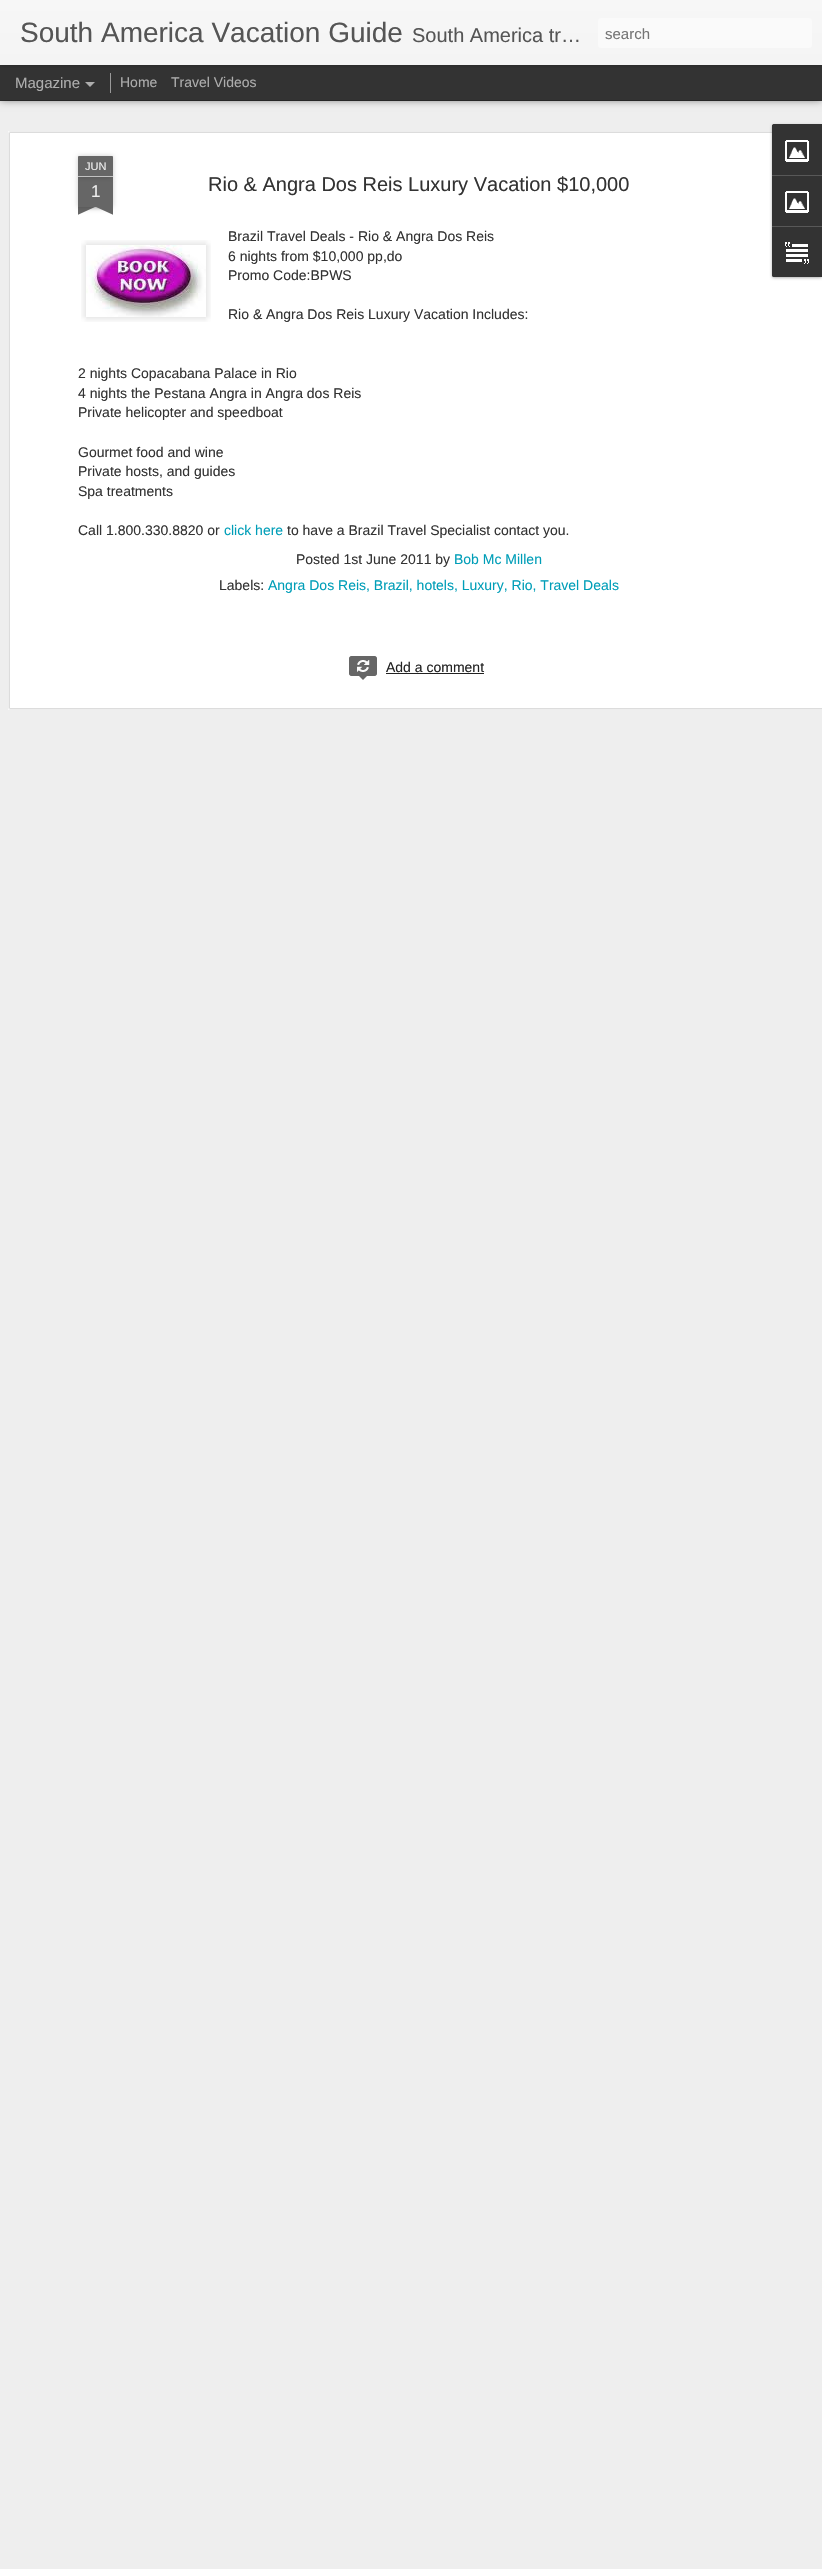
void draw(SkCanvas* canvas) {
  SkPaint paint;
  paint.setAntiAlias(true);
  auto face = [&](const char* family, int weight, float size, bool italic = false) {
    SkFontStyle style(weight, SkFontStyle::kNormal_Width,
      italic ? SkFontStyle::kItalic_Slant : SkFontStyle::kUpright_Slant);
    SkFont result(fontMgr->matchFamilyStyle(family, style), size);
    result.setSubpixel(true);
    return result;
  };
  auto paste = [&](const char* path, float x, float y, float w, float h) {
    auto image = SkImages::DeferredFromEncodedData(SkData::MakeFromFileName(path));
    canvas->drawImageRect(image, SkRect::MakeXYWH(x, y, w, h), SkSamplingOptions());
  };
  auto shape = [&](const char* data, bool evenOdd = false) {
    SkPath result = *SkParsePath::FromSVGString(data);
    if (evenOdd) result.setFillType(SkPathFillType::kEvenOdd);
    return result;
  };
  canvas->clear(0xff333333);
  paint.setColor(0xffeeeeee);
  canvas->drawRect(SkRect::MakeXYWH(0, 101, 822, 2468), paint);
  paint.setColor(0x80000000);
  paint.setMaskFilter(SkMaskFilter::MakeBlur(kNormal_SkBlurStyle, 4));
  canvas->drawRect(SkRect::MakeXYWH(0, 65, 822, 35), paint);
  paint.setMaskFilter(nullptr);
  paint.setColor(0xff333333);
  canvas->drawRect(SkRect::MakeXYWH(0, 65, 822, 35), paint);
  paint.setColor(0xff999999);
  canvas->drawRect(SkRect::MakeXYWH(110, 73, 1, 20), paint);
  paint.setColor(0x4d000000);
  paint.setMaskFilter(SkMaskFilter::MakeBlur(kNormal_SkBlurStyle, 2.5f));
  canvas->drawRect(SkRect::MakeXYWH(0, 0, 822, 65), paint);
  paint.setMaskFilter(nullptr);
  {
    const SkColor colors[] = {0xfff7f7f7, 0xfff4f4f4};
    const float stops[] = {0, 1};
    const SkPoint ends[] = {{0, 0}, {0, 65}};
    paint.setShader(SkGradientShader::MakeLinear(ends, colors, stops, 2, SkTileMode::kClamp));
    paint.setAlpha(255);
  }
  canvas->drawRect(SkRect::MakeXYWH(0, 0, 822, 65), paint);
  paint.setShader(nullptr);
  paint.setColor(0xfffafafa);
  canvas->drawRoundRect(SkRect::MakeXYWH(598, 18, 214, 30), 3, 3, paint);
  paint.setColor(0xffadadad);
  canvas->drawPath(shape("M85 82H95L90 87Z"), paint);
  paint.setColor(0xffffffff);
  canvas->drawRect(SkRect::MakeXYWH(8, 131, 814, 579), paint);
  paste("img/1.png", 8, 131, 814, 579);
  paint.setColor(0x33000000);
  paint.setMaskFilter(SkMaskFilter::MakeBlur(kNormal_SkBlurStyle, 2.5f));
  canvas->drawRect(SkRect::MakeXYWH(78, 177, 35, 30), paint);
  paint.setMaskFilter(nullptr);
  paint.setColor(0xff666666);
  canvas->drawRect(SkRect::MakeXYWH(78, 177, 35, 30), paint);
  paint.setColor(0x33000000);
  paint.setMaskFilter(SkMaskFilter::MakeBlur(kNormal_SkBlurStyle, 2.5f));
  canvas->drawRoundRect(SkRect::MakeXYWH(78, 156, 35, 21), 1, 1, paint);
  paint.setMaskFilter(nullptr);
  paint.setColor(0xff666666);
  canvas->drawPath(shape("M79 156H112C112.5 156 113 156.5 113 157V177H78V157C78 156.5 78.5 156 79 156Z"), paint);
  paint.setColor(0xffc2c2c2);
  canvas->drawRect(SkRect::MakeXYWH(78, 176, 35, 1), paint);
  canvas->save();
  canvas->clipRect(SkRect::MakeXYWH(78, 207, 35, 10));
  paint.setColor(0x33000000);
  paint.setMaskFilter(SkMaskFilter::MakeBlur(kNormal_SkBlurStyle, 2.5f));
  canvas->drawRect(SkRect::MakeXYWH(69, 197, 50, 10), paint);
  paint.setMaskFilter(nullptr);
  canvas->restore();
  canvas->save();
  canvas->clipRect(SkRect::MakeXYWH(78, 207, 35, 10));
  paint.setColor(0xff666666);
  canvas->drawPath(shape("M69 208L115 187L119 196L73 217Z"), paint);
  canvas->restore();
  canvas->save();
  canvas->clipRect(SkRect::MakeXYWH(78, 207, 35, 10));
  paint.setColor(0x33000000);
  paint.setMaskFilter(SkMaskFilter::MakeBlur(kNormal_SkBlurStyle, 2.5f));
  canvas->drawRect(SkRect::MakeXYWH(72, 197, 50, 10), paint);
  paint.setMaskFilter(nullptr);
  canvas->restore();
  canvas->save();
  canvas->clipRect(SkRect::MakeXYWH(78, 207, 35, 10));
  paint.setColor(0xff666666);
  canvas->drawPath(shape("M76 187L122 208L118 217L72 196Z"), paint);
  canvas->restore();
  paste("img/2.png", 81, 240, 130, 82);
  canvas->drawRoundRect(SkRect::MakeXYWH(349, 656, 28, 20), 3, 3, paint);
  paste("img/3.png", 357, 660, 13, 12);
  paint.setStroke(true);
  paint.setStrokeWidth(1);
  canvas->drawRoundRect(SkRect::MakeXYWH(349.5f, 656.5f, 27, 19), 2.5f, 2.5f, paint);
  paint.setStroke(false);
  canvas->drawPath(shape("M358 675H368L363 680Z"), paint);
  paint.setColor(0xff222222);
  canvas->drawRect(SkRect::MakeXYWH(386, 673, 98, 1), paint);
  paint.setColor(0x4d000000);
  paint.setMaskFilter(SkMaskFilter::MakeBlur(kNormal_SkBlurStyle, 1.5f));
  canvas->drawRoundRect(SkRect::MakeXYWH(772, 125, 50, 153), 2, 2, paint);
  paint.setMaskFilter(nullptr);
  paint.setColor(0xff333333);
  canvas->drawPath(shape("M774 124H822V277H774C773 277 772 276 772 275V126C772 125 773 124 774 124Z"), paint);
  canvas->drawPath(shape("M774 124H822V175H772V126C772 125 773 124 774 124Z"), paint);
  paste("img/4.png", 785, 140, 24, 22);
  paint.setColor(0xff585858);
  canvas->drawRect(SkRect::MakeXYWH(772, 175, 50, 1), paint);
  paste("img/4.png", 785, 191, 24, 22);
  paint.setColor(0xff333333);
  canvas->drawPath(shape("M772 226H822V277H774C773 277 772 276 772 275Z"), paint);
  paint.setColor(0xff585858);
  canvas->drawRect(SkRect::MakeXYWH(772, 226, 50, 1), paint);
  paste("img/5.png", 785, 242, 24, 22);
  auto f0 = face("Liberation Sans", 400, 28);
  paint.setColor(0xff555555);
  canvas->drawString("South America Vacation Guide", 20, 42, f0, paint);
  auto f1 = face("Liberation Sans", 400, 20);
  canvas->drawString("South America tr…", 412, 42, f1, paint);
  auto f2 = face("Liberation Sans", 400, 15);
  paint.setColor(0xff757575);
  canvas->drawString("search", 605, 39, f2, paint);
  paint.setColor(0xffadadad);
  canvas->drawString("Magazine", 15, 88, f2, paint);
  auto f3 = face("Liberation Sans", 400, 14);
  canvas->drawString("Home", 120, 87, f3, paint);
  canvas->drawString("Travel Videos", 171, 87, f3, paint);
  auto f4 = face("Liberation Sans", 400, 11);
  paint.setColor(0xffeeeeee);
  canvas->drawString("JUN", 85, 170, f4, paint);
  auto f5 = face("Liberation Sans", 400, 17);
  canvas->drawString("1", 91, 197, f5, paint);
  paint.setColor(0xff333333);
  canvas->drawString("Rio & Angra Dos Reis Luxury Vacation $10,000", 208, 191, f1, paint);
  {
    const struct { const char* s; float x, y; } items[] = {
      {"Brazil Travel Deals - Rio & Angra Dos Reis", 228, 241},
      {"6 nights from $10,000 pp,do", 228, 261},
      {"Promo Code:BPWS", 228, 280},
      {"Rio & Angra Dos Reis Luxury Vacation Includes:", 228, 319},
      {"2 nights Copacabana Palace in Rio", 78, 378},
      {"4 nights the Pestana Angra in Angra dos Reis", 78, 398},
      {"Private helicopter and speedboat", 78, 417},
      {"Gourmet food and wine", 78, 457},
      {"Private hosts, and guides", 78, 476},
      {"Spa treatments", 78, 496},
      {"Call 1.800.330.8820 or", 78, 535},
    };
    for (auto [s, x, y] : items) {
      canvas->drawString(s, x, y, f3, paint);
    }
  }
  paint.setColor(0xff009eb8);
  canvas->drawString("click here", 224, 535, f3, paint);
  paint.setColor(0xff333333);
  canvas->drawString("to have a Brazil Travel Specialist contact you.", 287, 535, f3, paint);
  canvas->drawString("Posted 1st June 2011 by", 296, 564, f3, paint);
  paint.setColor(0xff009eb8);
  canvas->drawString("Bob Mc Millen", 454, 564, f3, paint);
  paint.setColor(0xff333333);
  canvas->drawString("Labels:", 219, 590, f3, paint);
  paint.setColor(0xff009eb8);
  canvas->drawString("Angra Dos Reis, Brazil, hotels, Luxury, Rio, Travel Deals", 268, 590, f3, paint);
  paint.setColor(0xff222222);
  canvas->drawString("Add a comment", 386, 672, f3, paint);
}
